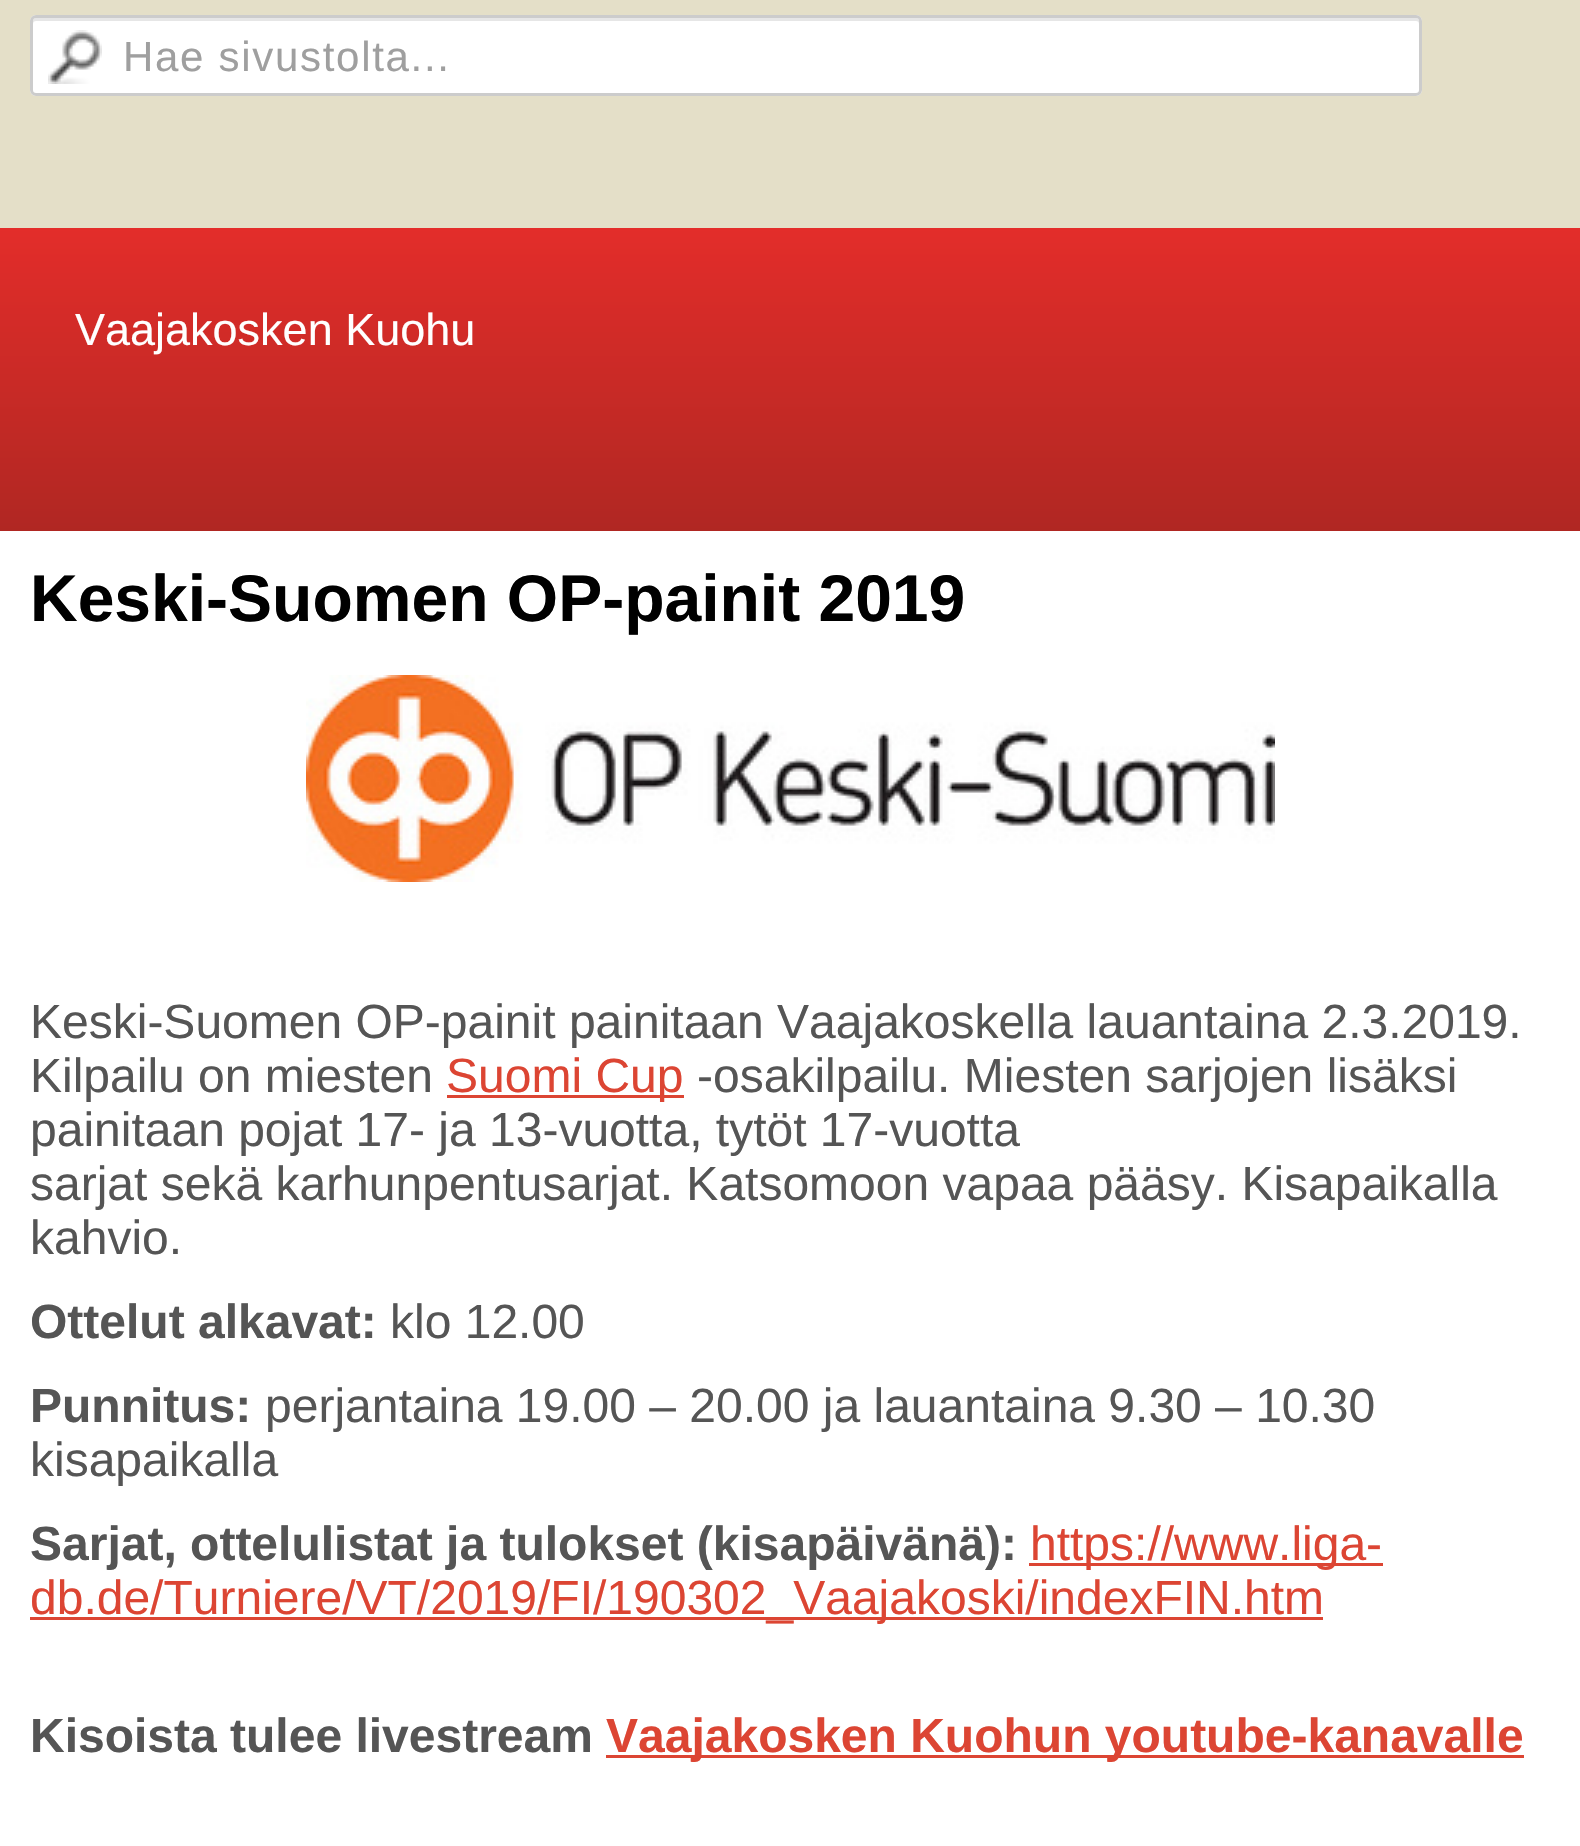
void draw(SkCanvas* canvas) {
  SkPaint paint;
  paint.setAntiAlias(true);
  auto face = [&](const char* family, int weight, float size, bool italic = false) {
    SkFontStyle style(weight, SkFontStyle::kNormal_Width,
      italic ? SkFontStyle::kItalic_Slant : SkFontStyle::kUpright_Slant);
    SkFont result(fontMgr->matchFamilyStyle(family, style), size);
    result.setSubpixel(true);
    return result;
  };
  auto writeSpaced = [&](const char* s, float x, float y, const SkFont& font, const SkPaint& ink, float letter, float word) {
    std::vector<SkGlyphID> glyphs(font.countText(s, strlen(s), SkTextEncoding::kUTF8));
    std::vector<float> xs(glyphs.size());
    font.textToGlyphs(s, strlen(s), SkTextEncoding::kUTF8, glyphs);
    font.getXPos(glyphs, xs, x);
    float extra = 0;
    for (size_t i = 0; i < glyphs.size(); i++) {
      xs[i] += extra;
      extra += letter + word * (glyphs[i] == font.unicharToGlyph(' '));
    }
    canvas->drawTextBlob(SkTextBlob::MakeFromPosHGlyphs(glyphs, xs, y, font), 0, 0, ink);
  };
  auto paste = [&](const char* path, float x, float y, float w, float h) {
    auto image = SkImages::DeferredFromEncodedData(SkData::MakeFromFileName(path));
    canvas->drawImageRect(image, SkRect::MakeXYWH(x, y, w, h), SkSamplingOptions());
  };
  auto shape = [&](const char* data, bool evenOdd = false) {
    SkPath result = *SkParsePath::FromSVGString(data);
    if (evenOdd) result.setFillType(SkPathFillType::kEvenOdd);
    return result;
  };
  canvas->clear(0xffe4dfc8);
  paint.setColor(0xffffffff);
  canvas->drawRoundRect(SkRect::MakeXYWH(30, 15, 1392, 81), 6, 6, paint);
  paste("img/1.png", 48, 30, 54, 54);
  paint.setColor(0xffe6e6e6);
  canvas->drawPath(shape("M36 21H1416C1418 21 1419 22 1419 24V21C1419 19 1418 18 1416 18H36C34 18 33 19 33 21V24C33 22 34 21 36 21Z"), paint);
  paint.setStroke(true);
  paint.setStrokeWidth(3);
  paint.setColor(0xffcccccc);
  canvas->drawRoundRect(SkRect::MakeXYWH(31.5f, 16.5f, 1389, 78), 4.5f, 4.5f, paint);
  paint.setStroke(false);
  {
    const SkColor colors[] = {0xffe32d2a, 0xffa72621};
    const float stops[] = {0, 1};
    const SkPoint ends[] = {{791, 228}, {791, 585}};
    paint.setShader(SkGradientShader::MakeLinear(ends, colors, stops, 2, SkTileMode::kClamp));
    paint.setAlpha(255);
  }
  canvas->drawRect(SkRect::MakeXYWH(0, 228, 1580, 303), paint);
  paint.setShader(nullptr);
  paint.setColor(0xffffffff);
  canvas->drawRect(SkRect::MakeXYWH(0, 531, 1580, 1315), paint);
  paste("img/2.png", 306, 675, 969, 207);
  {
    const struct { float x, y, w, h; SkColor color; } items[] = {
      {447, 1095, 237, 3, 0xffdc4533},
      {1029, 1563, 354, 3, 0xffdc4533},
      {30, 1617, 1293, 3, 0xffdc4533},
      {606, 1755, 918, 3, 0xffdc4533},
    };
    for (auto [x, y, w, h, color] : items) {
      paint.setColor(color);
      canvas->drawRect(SkRect::MakeXYWH(x, y, w, h), paint);
    }
  }
  auto f0 = face("Liberation Sans", 400, 42);
  paint.setColor(0xff9f9f9f);
  writeSpaced("Hae sivustolta...", 123, 71, f0, paint, 1.7f, 0);
  auto f1 = face("Liberation Sans", 400, 45);
  paint.setColor(0xffffffff);
  canvas->drawString("Vaajakosken Kuohu", 75, 345, f1, paint);
  auto f2 = face("Liberation Sans", 700, 66);
  paint.setColor(0xff000000);
  canvas->drawString("Keski-Suomen OP-painit 2019", 30, 621, f2, paint);
  auto f3 = face("Liberation Sans", 400, 48);
  paint.setColor(0xff555555);
  canvas->drawString("Keski-Suomen OP-painit painitaan Vaajakoskella lauantaina 2.3.2019.", 30, 1038, f3, paint);
  canvas->drawString("Kilpailu on miesten", 30, 1092, f3, paint);
  paint.setColor(0xffdc4533);
  canvas->drawString("Suomi Cup", 446, 1092, f3, paint);
  paint.setColor(0xff555555);
  {
    const struct { const char* s; float x, y; } items[] = {
      {"-osakilpailu. Miesten sarjojen lisäksi", 697, 1092},
      {"painitaan pojat 17- ja 13-vuotta, tytöt 17-vuotta", 30, 1146},
      {"sarjat sekä karhunpentusarjat. Katsomoon vapaa pääsy. Kisapaikalla", 30, 1200},
      {"kahvio.", 30, 1254},
    };
    for (auto [s, x, y] : items) {
      canvas->drawString(s, x, y, f3, paint);
    }
  }
  auto f4 = face("Liberation Sans", 700, 48);
  canvas->drawString("Ottelut alkavat:", 30, 1338, f4, paint);
  canvas->drawString("klo 12.00", 390, 1338, f3, paint);
  canvas->drawString("Punnitus:", 30, 1422, f4, paint);
  canvas->drawString("perjantaina 19.00 – 20.00 ja lauantaina 9.30 – 10.30", 265, 1422, f3, paint);
  canvas->drawString("kisapaikalla", 30, 1476, f3, paint);
  canvas->drawString("Sarjat, ottelulistat ja tulokset (kisapäivänä):", 30, 1560, f4, paint);
  paint.setColor(0xffdc4533);
  canvas->drawString("https://www.liga-", 1030, 1560, f3, paint);
  canvas->drawString("db.de/Turniere/VT/2019/FI/190302_Vaajakoski/indexFIN.htm", 30, 1614, f3, paint);
  paint.setColor(0xff555555);
  canvas->drawString("Kisoista tulee livestream", 30, 1752, f4, paint);
  paint.setColor(0xffdc4533);
  canvas->drawString("Vaajakosken Kuohun youtube-kanavalle", 606, 1752, f4, paint);
}
